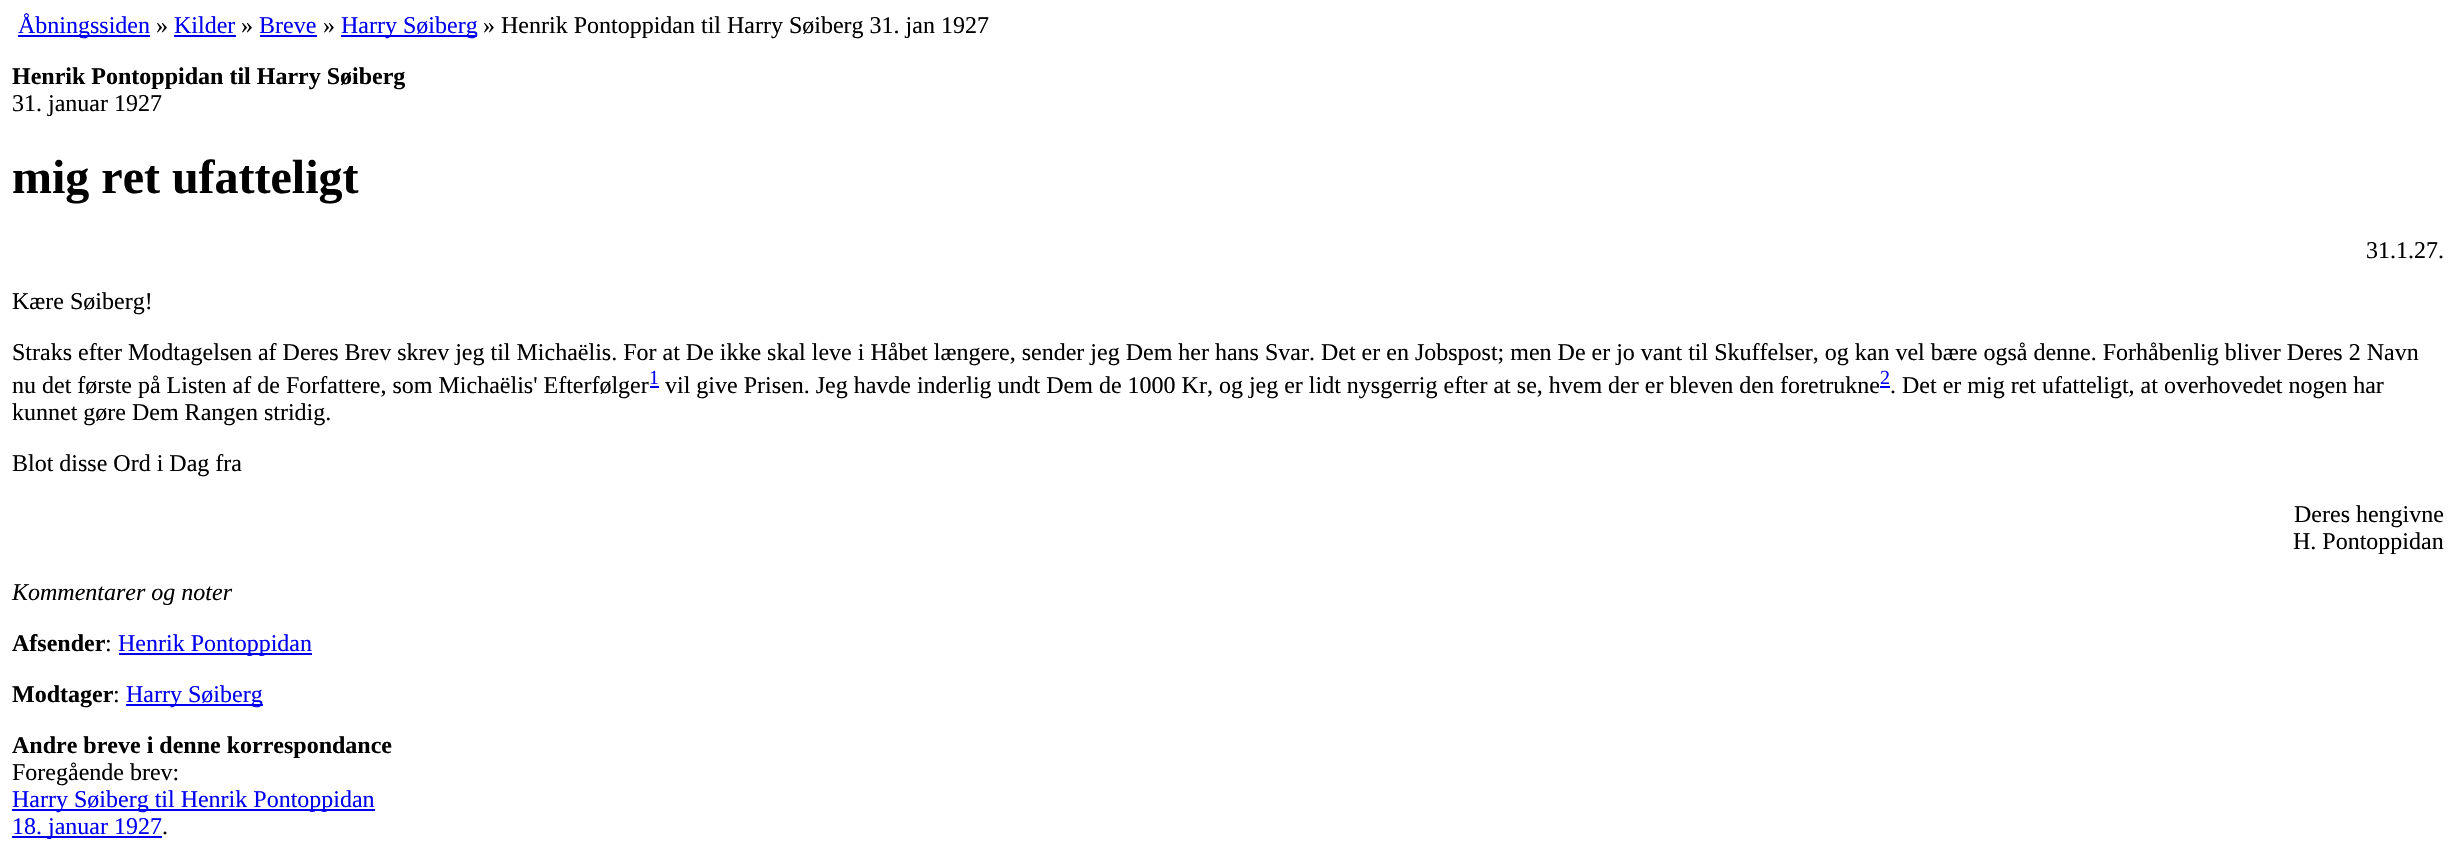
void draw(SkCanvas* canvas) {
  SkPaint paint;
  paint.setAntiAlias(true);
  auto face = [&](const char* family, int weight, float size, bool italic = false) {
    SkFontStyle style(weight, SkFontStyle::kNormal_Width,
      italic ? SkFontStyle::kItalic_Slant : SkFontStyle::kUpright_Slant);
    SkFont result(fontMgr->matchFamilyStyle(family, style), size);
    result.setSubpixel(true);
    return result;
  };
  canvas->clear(0xffffffff);
  {
    const struct { float x, y, w, h; SkColor color; } items[] = {
      {18, 35, 132, 2, 0xff0000ee},
      {174, 35, 62, 2, 0xff0000ee},
      {260, 35, 57, 2, 0xff0000ee},
      {341, 35, 136, 2, 0xff0000ee},
      {650, 386, 9, 2, 0xff0000ee},
      {1880, 386, 10, 2, 0xff0000ee},
      {119, 653, 193, 2, 0xff0000ee},
      {126, 704, 137, 2, 0xff0000ee},
      {12, 809, 363, 2, 0xff0000ee},
      {12, 836, 150, 2, 0xff0000ee},
    };
    for (auto [x, y, w, h, color] : items) {
      paint.setColor(color);
      canvas->drawRect(SkRect::MakeXYWH(x, y, w, h), paint);
    }
  }
  auto f0 = face("Liberation Serif", 400, 24);
  canvas->drawString("Åbningssiden", 18, 33, f0, paint);
  paint.setColor(0xff000000);
  canvas->drawString("»", 156, 33, f0, paint);
  paint.setColor(0xff0000ee);
  canvas->drawString("Kilder", 174, 33, f0, paint);
  paint.setColor(0xff000000);
  canvas->drawString("»", 241, 33, f0, paint);
  paint.setColor(0xff0000ee);
  canvas->drawString("Breve", 259, 33, f0, paint);
  paint.setColor(0xff000000);
  canvas->drawString("»", 323, 33, f0, paint);
  paint.setColor(0xff0000ee);
  canvas->drawString("Harry Søiberg", 341, 33, f0, paint);
  paint.setColor(0xff000000);
  canvas->drawString("» Henrik Pontoppidan til Harry Søiberg 31. jan 1927", 483, 33, f0, paint);
  auto f1 = face("Liberation Serif", 700, 24);
  canvas->drawString("Henrik Pontoppidan til Harry Søiberg", 12, 84, f1, paint);
  canvas->drawString("31. januar 1927", 12, 111, f0, paint);
  auto f2 = face("Liberation Serif", 700, 48);
  canvas->drawString("mig ret ufatteligt", 12, 193, f2, paint);
  {
    const struct { const char* s; float x, y; } items[] = {
      {"31.1.27.", 2366, 258},
      {"Kære Søiberg!", 12, 309},
      {"Straks efter Modtagelsen af Deres Brev skrev jeg til Michaëlis. For at De ikke skal leve i Håbet længere, sender jeg Dem her hans Svar. Det er en Jobspost; men De er jo vant til Skuffelser, og kan vel bære også denne. Forhåbenlig bliver Deres 2 Navn", 12, 360},
      {"nu det første på Listen af de Forfattere, som Michaëlis' Efterfølger", 12, 393},
    };
    for (auto [s, x, y] : items) {
      canvas->drawString(s, x, y, f0, paint);
    }
  }
  auto f3 = face("Liberation Serif", 400, 20);
  paint.setColor(0xff0000ee);
  canvas->drawString("1", 649, 384, f3, paint);
  paint.setColor(0xff000000);
  canvas->drawString("vil give Prisen. Jeg havde inderlig undt Dem de 1000 Kr, og jeg er lidt nysgerrig efter at se, hvem der er bleven den foretrukne", 665, 393, f0, paint);
  paint.setColor(0xff0000ee);
  canvas->drawString("2", 1880, 384, f3, paint);
  paint.setColor(0xff000000);
  {
    const struct { const char* s; float x, y; } items[] = {
      {". Det er mig ret ufatteligt, at overhovedet nogen har", 1890, 393},
      {"kunnet gøre Dem Rangen stridig.", 12, 420},
      {"Blot disse Ord i Dag fra", 12, 471},
      {"Deres hengivne", 2294, 522},
      {"H. Pontoppidan", 2293, 549},
    };
    for (auto [s, x, y] : items) {
      canvas->drawString(s, x, y, f0, paint);
    }
  }
  auto f4 = face("Liberation Serif", 400, 24, true);
  canvas->drawString("Kommentarer og noter", 12, 600, f4, paint);
  canvas->drawString("Afsender", 12, 651, f1, paint);
  canvas->drawString(":", 105, 651, f0, paint);
  paint.setColor(0xff0000ee);
  canvas->drawString("Henrik Pontoppidan", 118, 651, f0, paint);
  paint.setColor(0xff000000);
  canvas->drawString("Modtager", 12, 702, f1, paint);
  canvas->drawString(":", 113, 702, f0, paint);
  paint.setColor(0xff0000ee);
  canvas->drawString("Harry Søiberg", 126, 702, f0, paint);
  paint.setColor(0xff000000);
  canvas->drawString("Andre breve i denne korrespondance", 12, 753, f1, paint);
  canvas->drawString("Foregående brev:", 12, 780, f0, paint);
  paint.setColor(0xff0000ee);
  canvas->drawString("Harry Søiberg til Henrik Pontoppidan", 12, 807, f0, paint);
  canvas->drawString("18. januar 1927", 12, 834, f0, paint);
  paint.setColor(0xff000000);
  canvas->drawString(".", 162, 834, f0, paint);
}
